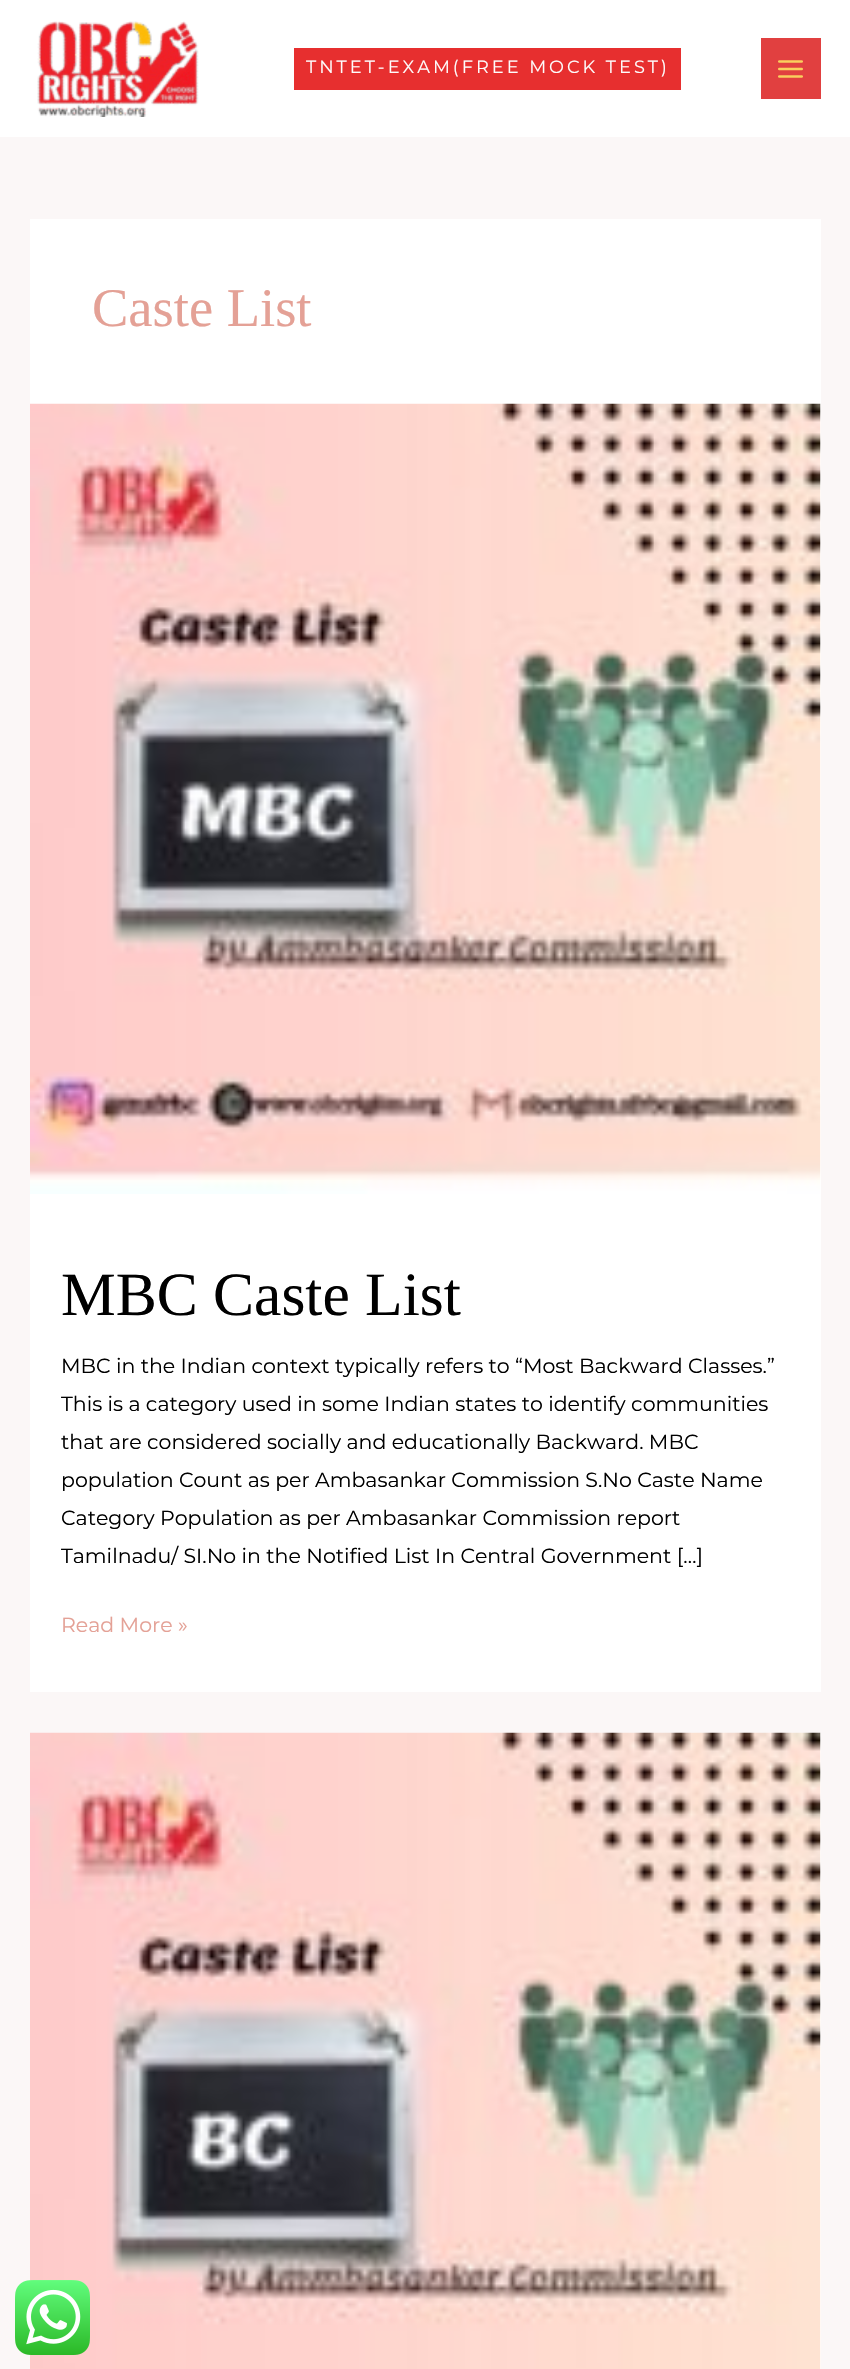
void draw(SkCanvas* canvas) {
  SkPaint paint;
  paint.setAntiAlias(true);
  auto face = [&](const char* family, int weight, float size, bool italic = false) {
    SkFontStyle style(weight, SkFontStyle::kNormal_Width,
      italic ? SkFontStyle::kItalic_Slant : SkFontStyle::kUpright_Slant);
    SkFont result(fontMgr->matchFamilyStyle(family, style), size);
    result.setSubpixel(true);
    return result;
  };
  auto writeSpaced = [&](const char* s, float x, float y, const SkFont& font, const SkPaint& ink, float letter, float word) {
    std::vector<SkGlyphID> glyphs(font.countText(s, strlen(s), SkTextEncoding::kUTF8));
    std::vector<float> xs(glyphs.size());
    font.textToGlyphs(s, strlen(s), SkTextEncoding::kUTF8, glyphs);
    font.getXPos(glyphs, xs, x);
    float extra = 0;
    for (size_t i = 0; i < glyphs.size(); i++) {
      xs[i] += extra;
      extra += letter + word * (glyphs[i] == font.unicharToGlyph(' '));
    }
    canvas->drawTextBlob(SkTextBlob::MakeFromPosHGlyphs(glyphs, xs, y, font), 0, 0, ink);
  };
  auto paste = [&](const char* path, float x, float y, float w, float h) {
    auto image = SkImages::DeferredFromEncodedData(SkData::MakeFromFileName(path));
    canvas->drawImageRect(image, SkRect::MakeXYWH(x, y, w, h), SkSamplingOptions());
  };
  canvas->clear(0xfffbf7f7);
  paint.setColor(0xffffffff);
  canvas->drawRect(SkRect::MakeXYWH(0, 0, 850, 137), paint);
  paste("img/1.png", 37, 21, 162, 96);
  paint.setColor(0xffe72f2f);
  canvas->drawRect(SkRect::MakeXYWH(294, 48, 387, 42), paint);
  paint.setColor(0xffe14040);
  canvas->drawRect(SkRect::MakeXYWH(761, 38, 60, 61), paint);
  paste("img/2.png", 778, 60, 25, 18);
  paint.setColor(0xffffffff);
  canvas->drawRect(SkRect::MakeXYWH(30, 219, 791, 1473), paint);
  paste("img/3.png", 30, 403, 791, 791);
  canvas->drawRect(SkRect::MakeXYWH(820, 1733, 1, 636), paint);
  paste("img/4.png", 30, 1732, 791, 637);
  paste("img/5.png", 15, 2280, 75, 75);
  auto f0 = face("Montserrat", 100, 17.75f);
  paint.setColor(0xfffefcfc);
  writeSpaced("TNTET-EXAM(FREE MOCK TEST)", 306, 73, f0, paint, 3, 0);
  auto f1 = face("Liberation Serif", 400, 54.5f);
  paint.setColor(0xffe4a196);
  canvas->drawString("Caste List", 92, 326, f1, paint);
  auto f2 = face("Liberation Serif", 400, 61.5f);
  paint.setColor(0xff000000);
  canvas->drawString("MBC Caste List", 61, 1315, f2, paint);
  auto f3 = face("Montserrat", 100, 20.5f);
  {
    const struct { const char* s; float x, y; } items[] = {
      {"MBC in the Indian context typically refers to “Most Backward Classes.”", 61, 1373},
      {"This is a category used in some Indian states to identify communities", 61, 1411},
      {"that are considered socially and educationally Backward. MBC", 61, 1449},
      {"population Count as per Ambasankar Commission S.No Caste Name", 61, 1487},
      {"Category Population as per Ambasankar Commission report", 61, 1525},
      {"Tamilnadu/ SI.No in the Notified List In Central Government […]", 61, 1563},
    };
    for (auto [s, x, y] : items) {
      canvas->drawString(s, x, y, f3, paint);
    }
  }
  paint.setColor(0xffe4a196);
  canvas->drawString("Read More »", 61, 1632, f3, paint);
}
